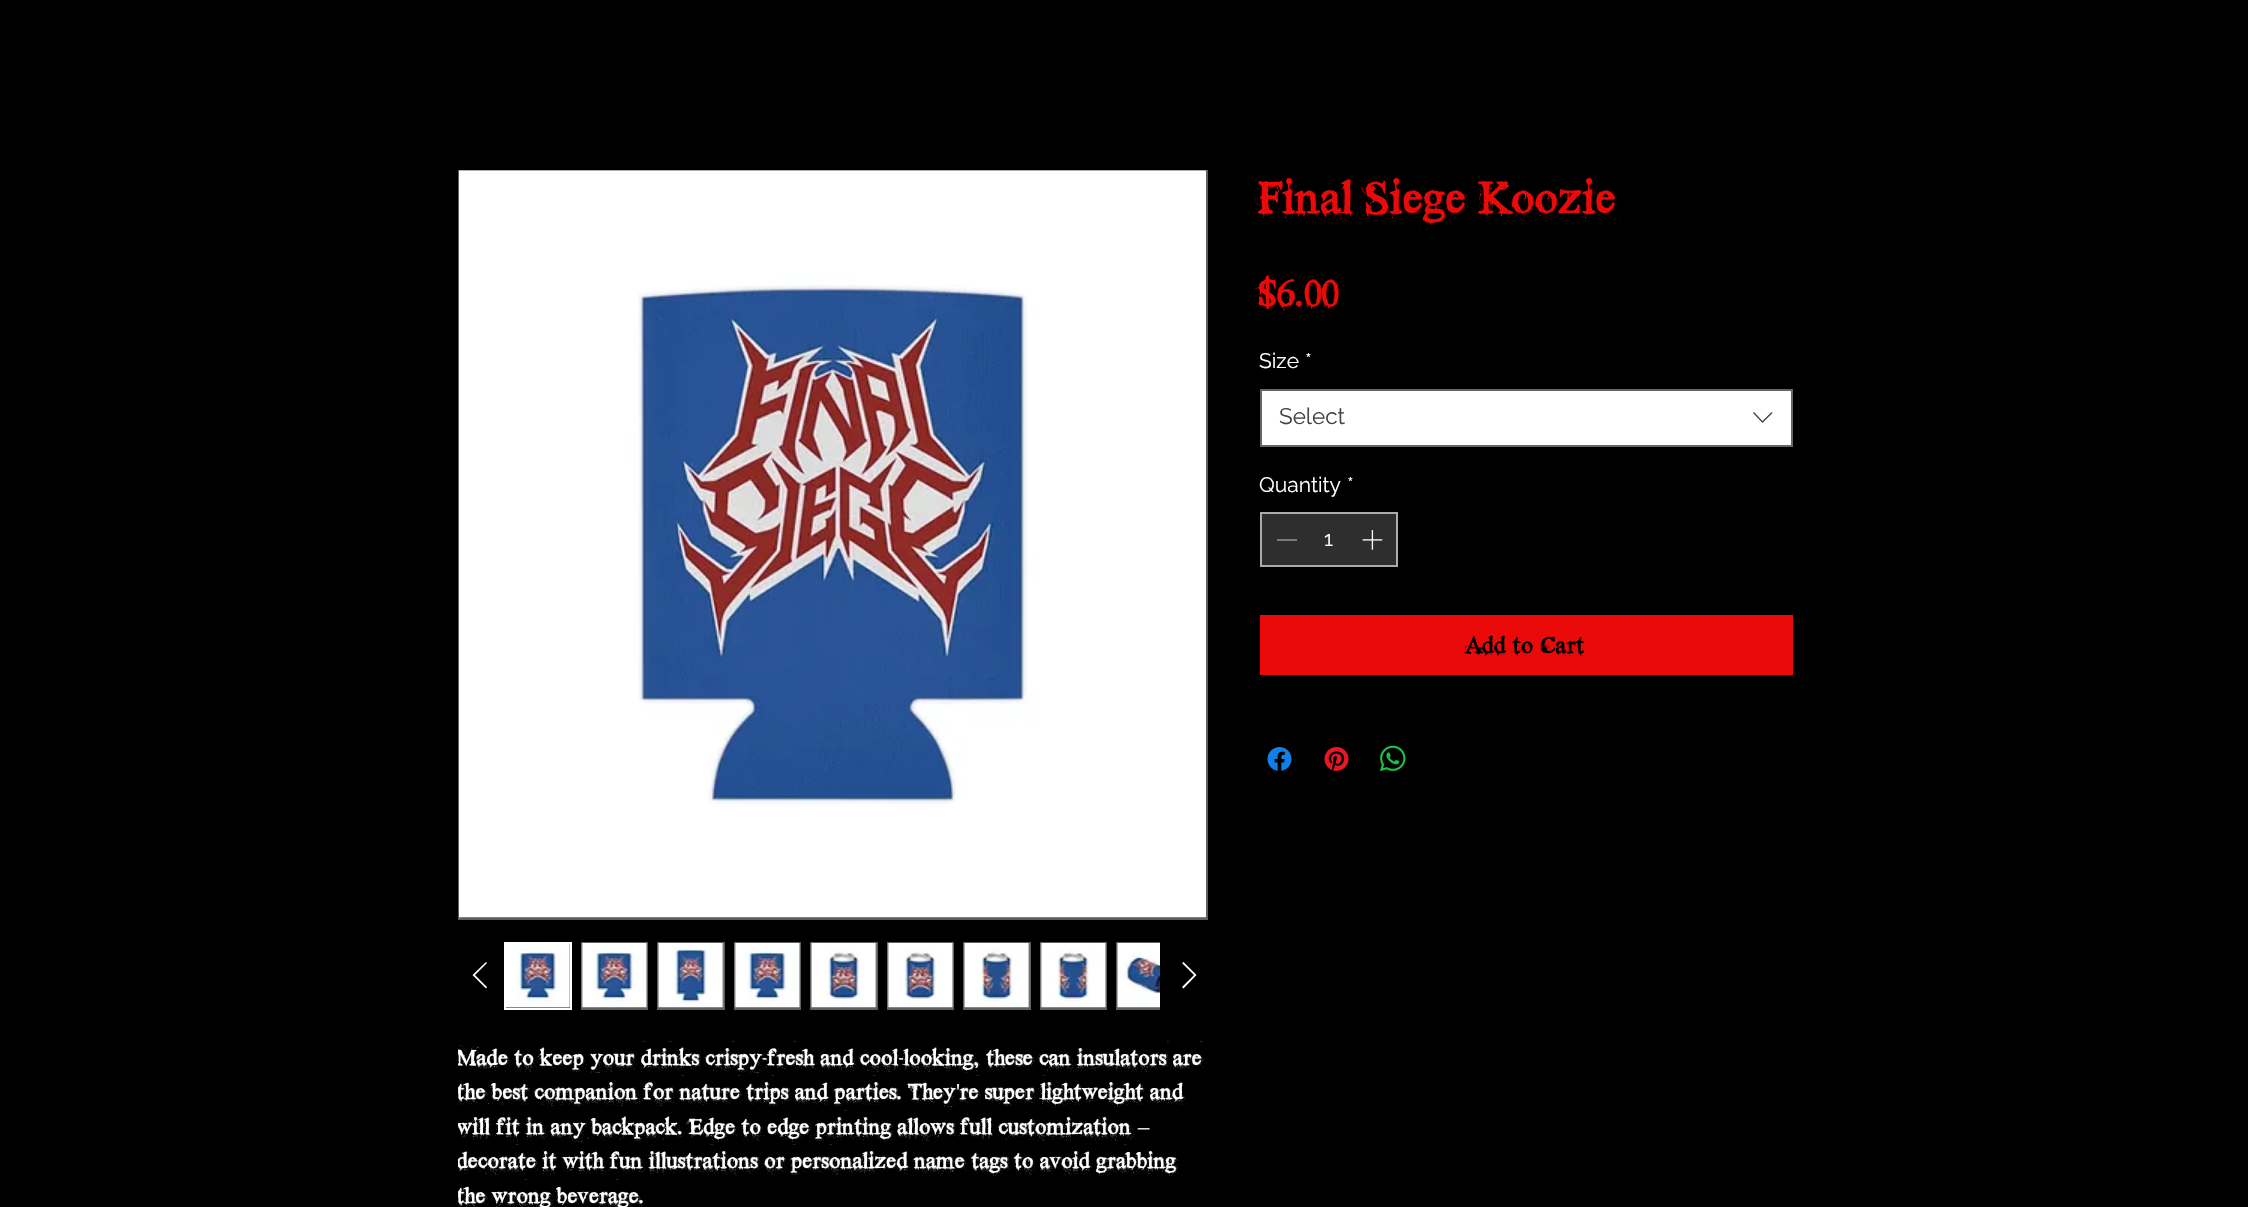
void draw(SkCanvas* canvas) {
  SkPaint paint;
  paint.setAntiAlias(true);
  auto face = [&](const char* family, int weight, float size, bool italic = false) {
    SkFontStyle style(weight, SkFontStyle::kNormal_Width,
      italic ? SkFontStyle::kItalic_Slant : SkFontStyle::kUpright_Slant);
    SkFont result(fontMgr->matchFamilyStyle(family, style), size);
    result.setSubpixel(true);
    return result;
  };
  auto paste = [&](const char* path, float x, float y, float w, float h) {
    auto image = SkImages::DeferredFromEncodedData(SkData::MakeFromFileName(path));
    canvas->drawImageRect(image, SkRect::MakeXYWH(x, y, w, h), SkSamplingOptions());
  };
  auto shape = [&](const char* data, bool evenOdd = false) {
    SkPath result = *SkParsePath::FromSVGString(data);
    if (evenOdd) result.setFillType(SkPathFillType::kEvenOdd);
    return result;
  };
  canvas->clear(0xff000000);
  paint.setColor(0xffffffff);
  canvas->drawRect(SkRect::MakeXYWH(1261, 390, 531, 56), paint);
  paint.setStroke(true);
  paint.setStrokeWidth(2);
  paint.setColor(0xff666666);
  canvas->drawRect(SkRect::MakeXYWH(1261, 390, 531, 56), paint);
  paint.setStroke(false);
  paint.setColor(0xff444444);
  canvas->drawPath(shape("M1771.5 412L1772.5 413L1762.5 423L1753 413L1754 412L1762.5 421Z", true), paint);
  paint.setColor(0xff2f2e2e);
  canvas->drawRect(SkRect::MakeXYWH(1261, 513, 136, 53), paint);
  paint.setStroke(true);
  paint.setColor(0xffacabab);
  canvas->drawRect(SkRect::MakeXYWH(1261, 513, 136, 53), paint);
  paint.setStroke(false);
  paint.setColor(0xff7b7b7b);
  canvas->drawRect(SkRect::MakeXYWH(1277, 539, 20, 2), paint);
  paste("img/1.png", 1362, 530, 21, 20);
  paint.setColor(0xffea0a0a);
  canvas->drawRect(SkRect::MakeXYWH(1260, 615, 533, 60), paint);
  paste("img/2.png", 1267, 747, 25, 24);
  paste("img/3.png", 1324, 747, 25, 24);
  paste("img/4.png", 1380, 745, 26, 27);
  paint.setStroke(true);
  paint.setColor(0xff605e5e);
  canvas->drawRect(SkRect::MakeXYWH(459, 171, 748, 748), paint);
  paste("img/5.png", 459, 170, 747, 748);
  paint.setStroke(false);
  paint.setColor(0xffffffff);
  canvas->drawPath(shape("M486 962L487 963L475 975L487 987L486 988.5L472.5 975Z", true), paint);
  paint.setColor(0xff605e5e);
  canvas->drawRect(SkRect::MakeXYWH(505, 943, 66, 66), paint);
  paint.setStroke(true);
  paint.setColor(0xffffffff);
  canvas->drawRect(SkRect::MakeXYWH(505, 943, 66, 66), paint);
  paste("img/6.png", 506, 943, 64, 65);
  paint.setStroke(false);
  paint.setColor(0xff605e5e);
  canvas->drawRect(SkRect::MakeXYWH(581, 942, 67, 68), paint);
  paste("img/7.png", 581, 943, 66, 65);
  canvas->drawRect(SkRect::MakeXYWH(657, 942, 68, 68), paint);
  paste("img/8.png", 658, 943, 66, 65);
  canvas->drawRect(SkRect::MakeXYWH(734, 942, 67, 68), paint);
  paste("img/9.png", 734, 943, 66, 65);
  canvas->drawRect(SkRect::MakeXYWH(810, 942, 68, 68), paint);
  paste("img/10.png", 811, 943, 66, 65);
  canvas->drawRect(SkRect::MakeXYWH(887, 942, 67, 68), paint);
  paste("img/11.png", 887, 943, 66, 65);
  canvas->drawRect(SkRect::MakeXYWH(963, 942, 68, 68), paint);
  paste("img/12.png", 964, 943, 66, 65);
  canvas->drawRect(SkRect::MakeXYWH(1040, 942, 67, 68), paint);
  paste("img/13.png", 1040, 943, 66, 65);
  canvas->drawRect(SkRect::MakeXYWH(1116, 942, 44, 68), paint);
  paste("img/14.png", 1117, 943, 43, 65);
  paint.setColor(0xffffffff);
  canvas->drawPath(shape("M1183.5 962L1196.5 975L1183.5 988.5L1182 987L1194 975L1182 963Z", true), paint);
  auto f0 = face("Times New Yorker", 400, 46.5f);
  paint.setColor(0xffea0a0a);
  canvas->drawString("Final Siege Koozie", 1259, 213, f0, paint);
  auto f1 = face("Times New Yorker", 400, 39);
  canvas->drawString("$6.00", 1259, 306, f1, paint);
  auto f2 = face("Raleway", 400, 21);
  paint.setColor(0xffffffff);
  canvas->drawString("Size", 1259, 368, f2, paint);
  canvas->drawString("*", 1305, 368, f2, paint);
  auto f3 = face("Raleway", 400, 22.5f);
  paint.setColor(0xff444444);
  canvas->drawString("Select", 1279, 424, f3, paint);
  paint.setColor(0xffffffff);
  {
    const struct { const char* s; float x, y; } items[] = {
      {"Quantity", 1259, 492},
      {"*", 1347, 492},
      {"1", 1324, 546},
    };
    for (auto [s, x, y] : items) {
      canvas->drawString(s, x, y, f2, paint);
    }
  }
  auto f4 = face("Times New Yorker", 400, 24);
  paint.setColor(0xff000000);
  canvas->drawString("Add to Cart", 1466, 653, f4, paint);
  canvas->save();
  canvas->clipRect(SkRect::MakeXYWH(458, 1040, 750, 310));
  auto f5 = face("Times New Yorker", 400, 22.5f);
  paint.setColor(0xffffffff);
  canvas->drawString("Made to keep your drinks crispy-fresh and cool-looking, these can insulators are", 457, 1065, f5, paint);
  canvas->drawString("the best companion for nature trips and parties. They", 457, 1099, f5, paint);
  canvas->restore();
  canvas->drawString("re super lightweight and", 960, 1099, f5, paint);
  auto f6 = face("Liberation Serif", 400, 22.5f);
  canvas->drawString("'", 956, 1099, f6, paint);
  canvas->save();
  canvas->clipRect(SkRect::MakeXYWH(458, 1040, 750, 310));
  canvas->drawString("will fit in any backpack. Edge to edge printing allows full customization", 457, 1134, f5, paint);
  canvas->restore();
  canvas->drawString("–", 1138, 1134, f6, paint);
  canvas->save();
  canvas->clipRect(SkRect::MakeXYWH(458, 1040, 750, 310));
  canvas->drawString("decorate it with fun illustrations or personalized name tags to avoid grabbing", 457, 1168, f5, paint);
  canvas->drawString("the wrong beverage.", 457, 1203, f5, paint);
  canvas->restore();
}
